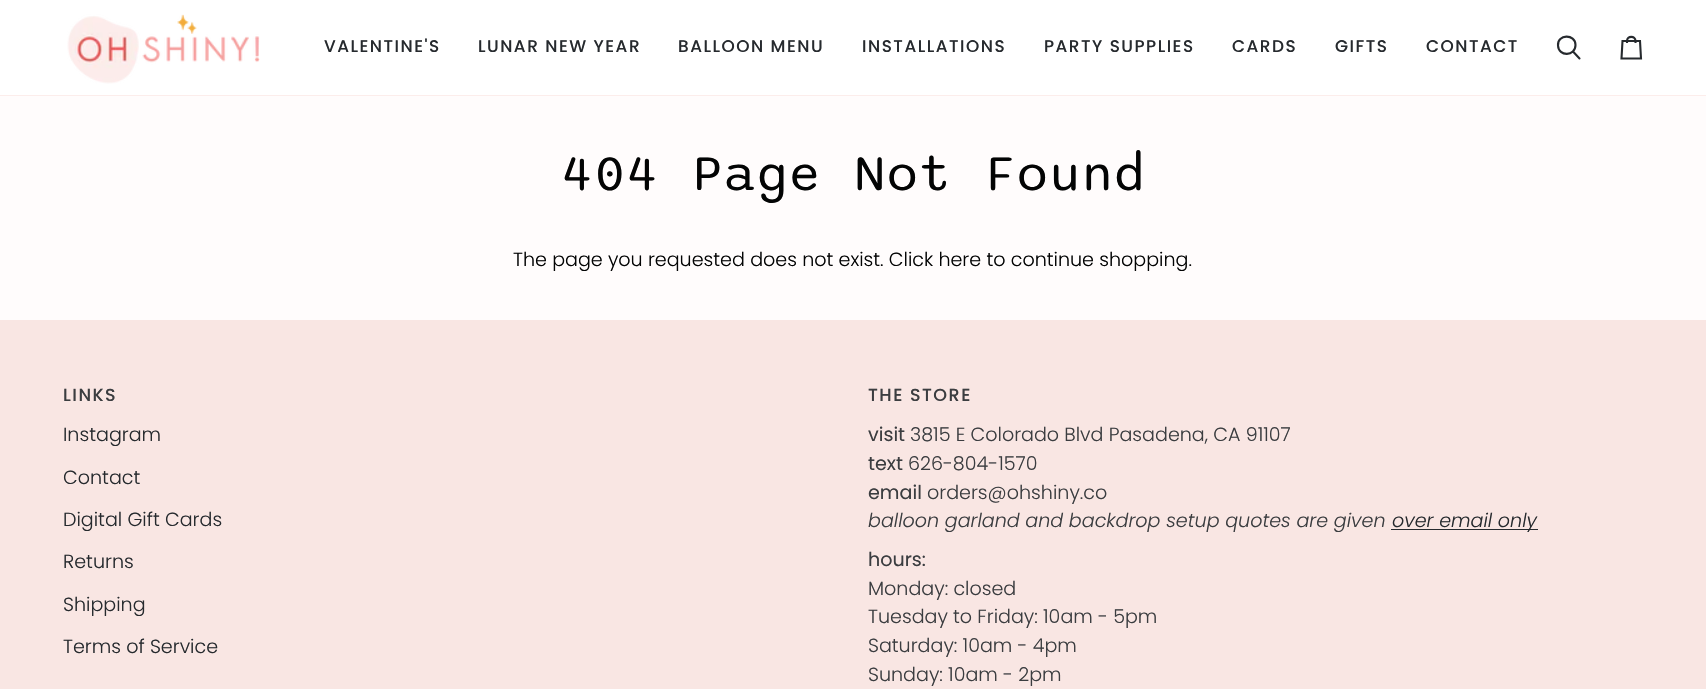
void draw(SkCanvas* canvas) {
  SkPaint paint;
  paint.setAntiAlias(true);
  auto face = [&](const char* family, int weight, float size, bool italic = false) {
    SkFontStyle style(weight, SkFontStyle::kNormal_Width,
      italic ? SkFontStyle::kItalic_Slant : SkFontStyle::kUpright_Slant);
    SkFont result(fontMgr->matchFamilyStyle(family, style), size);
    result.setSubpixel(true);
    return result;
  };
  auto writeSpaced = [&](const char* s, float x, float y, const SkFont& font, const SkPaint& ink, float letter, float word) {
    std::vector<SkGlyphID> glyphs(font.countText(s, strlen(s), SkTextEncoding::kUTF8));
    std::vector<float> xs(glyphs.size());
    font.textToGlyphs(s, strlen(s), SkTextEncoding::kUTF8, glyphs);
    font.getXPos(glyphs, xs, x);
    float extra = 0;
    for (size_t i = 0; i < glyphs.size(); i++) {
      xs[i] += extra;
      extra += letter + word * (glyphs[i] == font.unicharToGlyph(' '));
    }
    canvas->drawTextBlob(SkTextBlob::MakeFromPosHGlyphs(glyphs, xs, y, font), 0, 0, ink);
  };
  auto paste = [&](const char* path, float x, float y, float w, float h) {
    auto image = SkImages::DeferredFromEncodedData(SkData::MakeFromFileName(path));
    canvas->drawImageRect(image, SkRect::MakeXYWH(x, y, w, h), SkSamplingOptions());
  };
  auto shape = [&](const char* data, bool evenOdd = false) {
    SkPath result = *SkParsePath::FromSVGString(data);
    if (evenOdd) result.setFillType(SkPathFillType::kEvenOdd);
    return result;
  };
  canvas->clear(0xffffffff);
  paint.setColor(0xfffcedeb);
  canvas->drawRect(SkRect::MakeXYWH(0, 95, 1706, 1), paint);
  paste("img/1.png", 67, 14, 193, 70);
  paint.setStroke(true);
  paint.setStrokeWidth(2.1f);
  paint.setStrokeCap(SkPaint::kRound_Cap);
  paint.setStrokeJoin(SkPaint::kRound_Join);
  paint.setColor(0xff262a2e);
  canvas->drawPath(shape("M1575.5 45C1575.5 56.5 1558.5 57 1558 45.5C1557 34 1575.5 33.5 1575.5 45ZM1579.5 58.5L1573 51.5Z"), paint);
  paint.setStrokeCap(SkPaint::kButt_Cap);
  paint.setStrokeJoin(SkPaint::kMiter_Join);
  canvas->drawPath(shape("M1635.5 43V41H1640L1641 58.5H1621.5L1622.5 41H1627C1627 35.5 1635.5 35.5 1635.5 41H1627V43"), paint);
  paint.setStroke(false);
  {
    const struct { float x, y, w, h; SkColor color; } items[] = {
      {0, 96, 1706, 224, 0xfffffcfc},
      {0, 320, 1706, 369, 0xfff9e6e3},
      {1391, 529, 147, 1, 0xff262a2e},
    };
    for (auto [x, y, w, h, color] : items) {
      paint.setColor(color);
      canvas->drawRect(SkRect::MakeXYWH(x, y, w, h), paint);
    }
  }
  auto f0 = face("Poppins", 500, 16.9f);
  {
    const struct { const char* s; float x, y; } items[] = {
      {"VALENTINE'S", 324, 52},
      {"LUNAR NEW YEAR", 478, 52},
      {"BALLOON MENU", 678, 52},
      {"INSTALLATIONS", 862, 52},
      {"PARTY SUPPLIES", 1044, 52},
      {"CARDS", 1232, 52},
      {"GIFTS", 1335, 52},
      {"CONTACT", 1426, 52},
    };
    for (auto [s, x, y] : items) {
      writeSpaced(s, x, y, f0, paint, 1.5f, 0);
    }
  }
  auto f1 = face("Sono", 400, 52.5f);
  paint.setColor(0xff030404);
  canvas->drawString("404 Page Not Found", 561, 190, f1, paint);
  auto f2 = face("Poppins", 300, 19.1f);
  canvas->drawString("The page you requested does not exist. Click here to continue shopping.", 513, 266, f2, paint);
  auto f3 = face("Poppins", 500, 17.5f);
  paint.setColor(0xff3b3d40);
  writeSpaced("LINKS", 63, 401, f3, paint, 1.5f, 0);
  paint.setColor(0xff262a2e);
  {
    const struct { const char* s; float x, y; } items[] = {
      {"Instagram", 63, 441},
      {"Contact", 63, 484},
      {"Digital Gift Cards", 63, 526},
      {"Returns", 63, 568},
      {"Shipping", 63, 611},
      {"Terms of Service", 63, 653},
    };
    for (auto [s, x, y] : items) {
      canvas->drawString(s, x, y, f2, paint);
    }
  }
  paint.setColor(0xff3b3d40);
  writeSpaced("THE STORE", 868, 401, f3, paint, 1.5f, 0);
  auto f4 = face("Poppins", 400, 19.1f);
  canvas->drawString("visit", 868, 441, f4, paint);
  canvas->drawString("3815 E Colorado Blvd Pasadena, CA 91107", 910, 441, f2, paint);
  canvas->drawString("text", 868, 470, f4, paint);
  canvas->drawString("626-804-1570", 908, 470, f2, paint);
  canvas->drawString("email", 868, 499, f4, paint);
  canvas->drawString("orders@ohshiny.co", 927, 499, f2, paint);
  auto f5 = face("Poppins", 300, 19.1f, true);
  canvas->drawString("balloon garland and backdrop setup quotes are given", 868, 527, f5, paint);
  paint.setColor(0xff262a2e);
  canvas->drawString("over email only", 1392, 527, f5, paint);
  paint.setColor(0xff3b3d40);
  canvas->drawString("hours:", 868, 566, f4, paint);
  {
    const struct { const char* s; float x, y; } items[] = {
      {"Monday: closed", 868, 595},
      {"Tuesday to Friday: 10am - 5pm", 868, 623},
      {"Saturday: 10am - 4pm", 868, 652},
      {"Sunday: 10am - 2pm", 868, 681},
    };
    for (auto [s, x, y] : items) {
      canvas->drawString(s, x, y, f2, paint);
    }
  }
}
